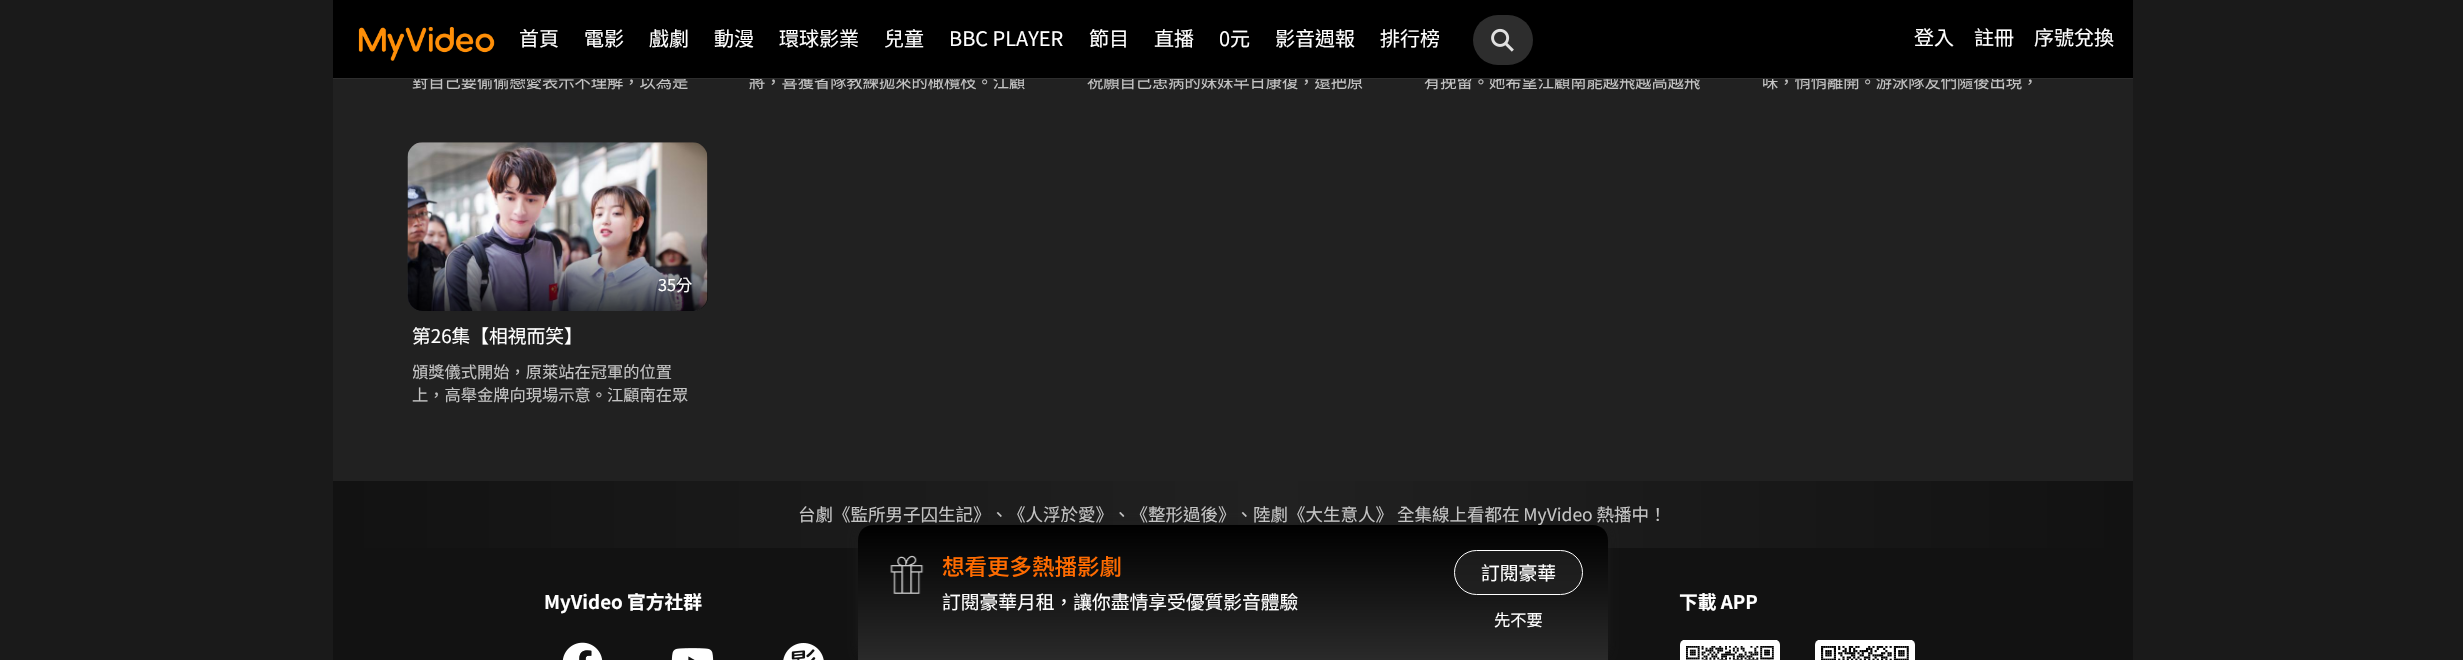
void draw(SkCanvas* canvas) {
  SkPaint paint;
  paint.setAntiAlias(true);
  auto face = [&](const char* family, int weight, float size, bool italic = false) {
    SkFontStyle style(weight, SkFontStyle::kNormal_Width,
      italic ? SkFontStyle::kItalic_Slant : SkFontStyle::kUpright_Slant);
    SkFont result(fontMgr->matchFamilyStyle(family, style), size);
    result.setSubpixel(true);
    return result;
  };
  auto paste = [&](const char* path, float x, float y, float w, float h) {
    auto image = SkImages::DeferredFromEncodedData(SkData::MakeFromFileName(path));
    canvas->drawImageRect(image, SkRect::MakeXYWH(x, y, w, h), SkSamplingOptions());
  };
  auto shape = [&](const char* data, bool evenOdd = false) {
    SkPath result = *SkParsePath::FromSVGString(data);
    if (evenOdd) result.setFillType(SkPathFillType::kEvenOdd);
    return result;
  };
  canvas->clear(0xff1a1a1a);
  {
    const SkColor colors[] = {0x00212121, 0x1a212121, 0x99212121, 0xd9212121, 0xff212121};
    const float stops[] = {0.22f, 0.24f, 0.29f, 0.34f, 0.38f};
    const SkPoint ends[] = {{1232, -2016}, {1233, 481}};
    paint.setShader(SkGradientShader::MakeLinear(ends, colors, stops, 5, SkTileMode::kClamp));
    paint.setAlpha(255);
  }
  canvas->drawRect(SkRect::MakeXYWH(333, 79, 1800, 402), paint);
  paint.setShader(nullptr);
  paint.setColor(0xff121212);
  canvas->drawRoundRect(SkRect::MakeXYWH(408, 143, 300, 168), 15, 15, paint);
  paste("img/3.png", 407, 142, 301, 169);
  {
    const SkColor colors[] = {0xcc000000, 0x4a000000, 0x00000000};
    const float stops[] = {0, 0.28f, 0.47f};
    const SkPoint ends[] = {{556, 313}, {559, 141}};
    paint.setShader(SkGradientShader::MakeLinear(ends, colors, stops, 3, SkTileMode::kClamp));
    paint.setAlpha(255);
  }
  canvas->drawRoundRect(SkRect::MakeXYWH(408, 143, 300, 168), 15, 15, paint);
  paint.setShader(nullptr);
  paint.setColor(0xff121212);
  canvas->drawRect(SkRect::MakeXYWH(333, 548, 1800, 112), paint);
  {
    const SkColor colors[] = {0xff121212, 0xff212121, 0xff121212};
    const float stops[] = {0, 0.52f, 1};
    const SkPoint ends[] = {{333, 514}, {2133, 514}};
    paint.setShader(SkGradientShader::MakeLinear(ends, colors, stops, 3, SkTileMode::kClamp));
    paint.setAlpha(255);
  }
  canvas->drawRect(SkRect::MakeXYWH(333, 481, 1800, 67), paint);
  paste("img/4.png", 562, 642, 41, 18);
  paste("img/5.png", 671, 648, 43, 12);
  paste("img/6.png", 783, 643, 41, 17);
  paste("img/7.png", 1680, 640, 100, 20);
  paste("img/8.png", 1815, 640, 100, 20);
  paint.setShader(nullptr);
  paint.setColor(0xcc1b1b1b);
  paint.setMaskFilter(SkMaskFilter::MakeBlur(kNormal_SkBlurStyle, 5));
  canvas->drawRoundRect(SkRect::MakeXYWH(858, 524, 750, 135), 15, 15, paint);
  paint.setMaskFilter(nullptr);
  auto f0 = face("Noto Sans TC", 400, 16.25f);
  paint.setColor(0xffc4c4c4);
  {
    const struct { const char* s; float x, y; } items[] = {
      {"對自己要偷偷戀愛表示不理解，以為是", 412, 88},
      {"將，喜獲省隊教練拋來的橄欖枝。江顧", 749, 88},
      {"祝願自己患病的妹妹早日康復，還把原", 1087, 88},
      {"有挽留。她希望江顧南能越飛越高越飛", 1424, 88},
      {"味，悄悄離開。游泳隊友們隨後出現，", 1762, 88},
    };
    for (auto [s, x, y] : items) {
      canvas->drawString(s, x, y, f0, paint);
    }
  }
  paint.setColor(0xff000000);
  canvas->drawRect(SkRect::MakeXYWH(333, 0, 1800, 78), paint);
  auto f1 = face("Noto Sans TC", 400, 20);
  paint.setColor(0xffffffff);
  {
    const struct { const char* s; float x, y; } items[] = {
      {"序號兌換", 2034, 45},
      {"註冊", 1974, 45},
      {"登入", 1914, 45},
    };
    for (auto [s, x, y] : items) {
      canvas->drawString(s, x, y, f1, paint);
    }
  }
  paste("img/1.png", 358, 26, 137, 35);
  paint.setColor(0xff2d2d2d);
  canvas->drawRoundRect(SkRect::MakeXYWH(1473, 15, 60, 50), 25, 25, paint);
  paste("img/2.png", 1491, 28, 23, 24);
  paint.setColor(0xffffffff);
  {
    const struct { const char* s; float x, y; } items[] = {
      {"排行榜", 1380, 46},
      {"影音週報", 1275, 46},
      {"0元", 1219, 46},
      {"直播", 1154, 46},
      {"節目", 1089, 46},
      {"BBC PLAYER", 949, 46},
      {"兒童", 884, 46},
      {"環球影業", 779, 46},
      {"動漫", 714, 46},
      {"戲劇", 649, 46},
      {"電影", 584, 46},
      {"首頁", 519, 46},
    };
    for (auto [s, x, y] : items) {
      canvas->drawString(s, x, y, f1, paint);
    }
  }
  paint.setColor(0xff2d2d2d);
  canvas->drawRect(SkRect::MakeXYWH(333, 78, 1800, 1), paint);
  paint.setColor(0xffffffff);
  canvas->drawString("35分", 658, 291, f0, paint);
  auto f2 = face("Noto Sans TC", 400, 18.75f);
  canvas->drawString("第26集【相視而笑】", 412, 343, f2, paint);
  canvas->save();
  canvas->clipRect(SkRect::MakeXYWH(413, 359, 290, 47));
  paint.setColor(0xffc4c4c4);
  canvas->drawString("頒獎儀式開始，原萊站在冠軍的位置", 412, 378, f0, paint);
  canvas->restore();
  canvas->drawString("上，高舉金牌向現場示意。江顧南在眾", 412, 401, f0, paint);
  auto f3 = face("Noto Sans TC", 400, 17.5f);
  canvas->drawString("台劇《監所男子囚生記》、《人浮於愛》、《整形過後》、陸劇《大生意人》 全集線上看都在 MyVideo 熱播中！", 798, 521, f3, paint);
  auto f4 = face("Noto Sans TC", 700, 18.75f);
  paint.setColor(0xffffffff);
  canvas->drawString("MyVideo 官方社群", 544, 609, f4, paint);
  canvas->drawString("下載 APP", 1679, 609, f4, paint);
  {
    const SkColor colors[] = {0xff000000, 0xff2a2a2a};
    const float stops[] = {0, 1};
    const SkPoint ends[] = {{1233, 525}, {1233, 660}};
    paint.setShader(SkGradientShader::MakeLinear(ends, colors, stops, 2, SkTileMode::kClamp));
    paint.setAlpha(255);
  }
  canvas->drawPath(shape("M873 525H1593C1601.5 525 1608 531.5 1608 540V660H858V540C858 531.5 864.5 525 873 525Z"), paint);
  paste("img/9.png", 890, 555, 34, 39);
  auto f5 = face("Noto Sans TC", 500, 22.5f);
  paint.setShader(nullptr);
  paint.setColor(0xffff6b00);
  canvas->drawString("想看更多熱播影劇", 942, 575, f5, paint);
  paint.setColor(0xffffffff);
  canvas->drawString("訂閱豪華月租，讓你盡情享受優質影音體驗", 942, 609, f2, paint);
  paint.setColor(0x99262626);
  canvas->drawRoundRect(SkRect::MakeXYWH(1454.5f, 550.5f, 128, 44), 22, 22, paint);
  paint.setStroke(true);
  paint.setStrokeWidth(1);
  paint.setColor(0xffffffff);
  canvas->drawRoundRect(SkRect::MakeXYWH(1454.5f, 550.5f, 128, 44), 22, 22, paint);
  paint.setStroke(false);
  canvas->drawString("訂閱豪華", 1481, 580, f2, paint);
  canvas->drawString("先不要", 1494, 626, f0, paint);
}
